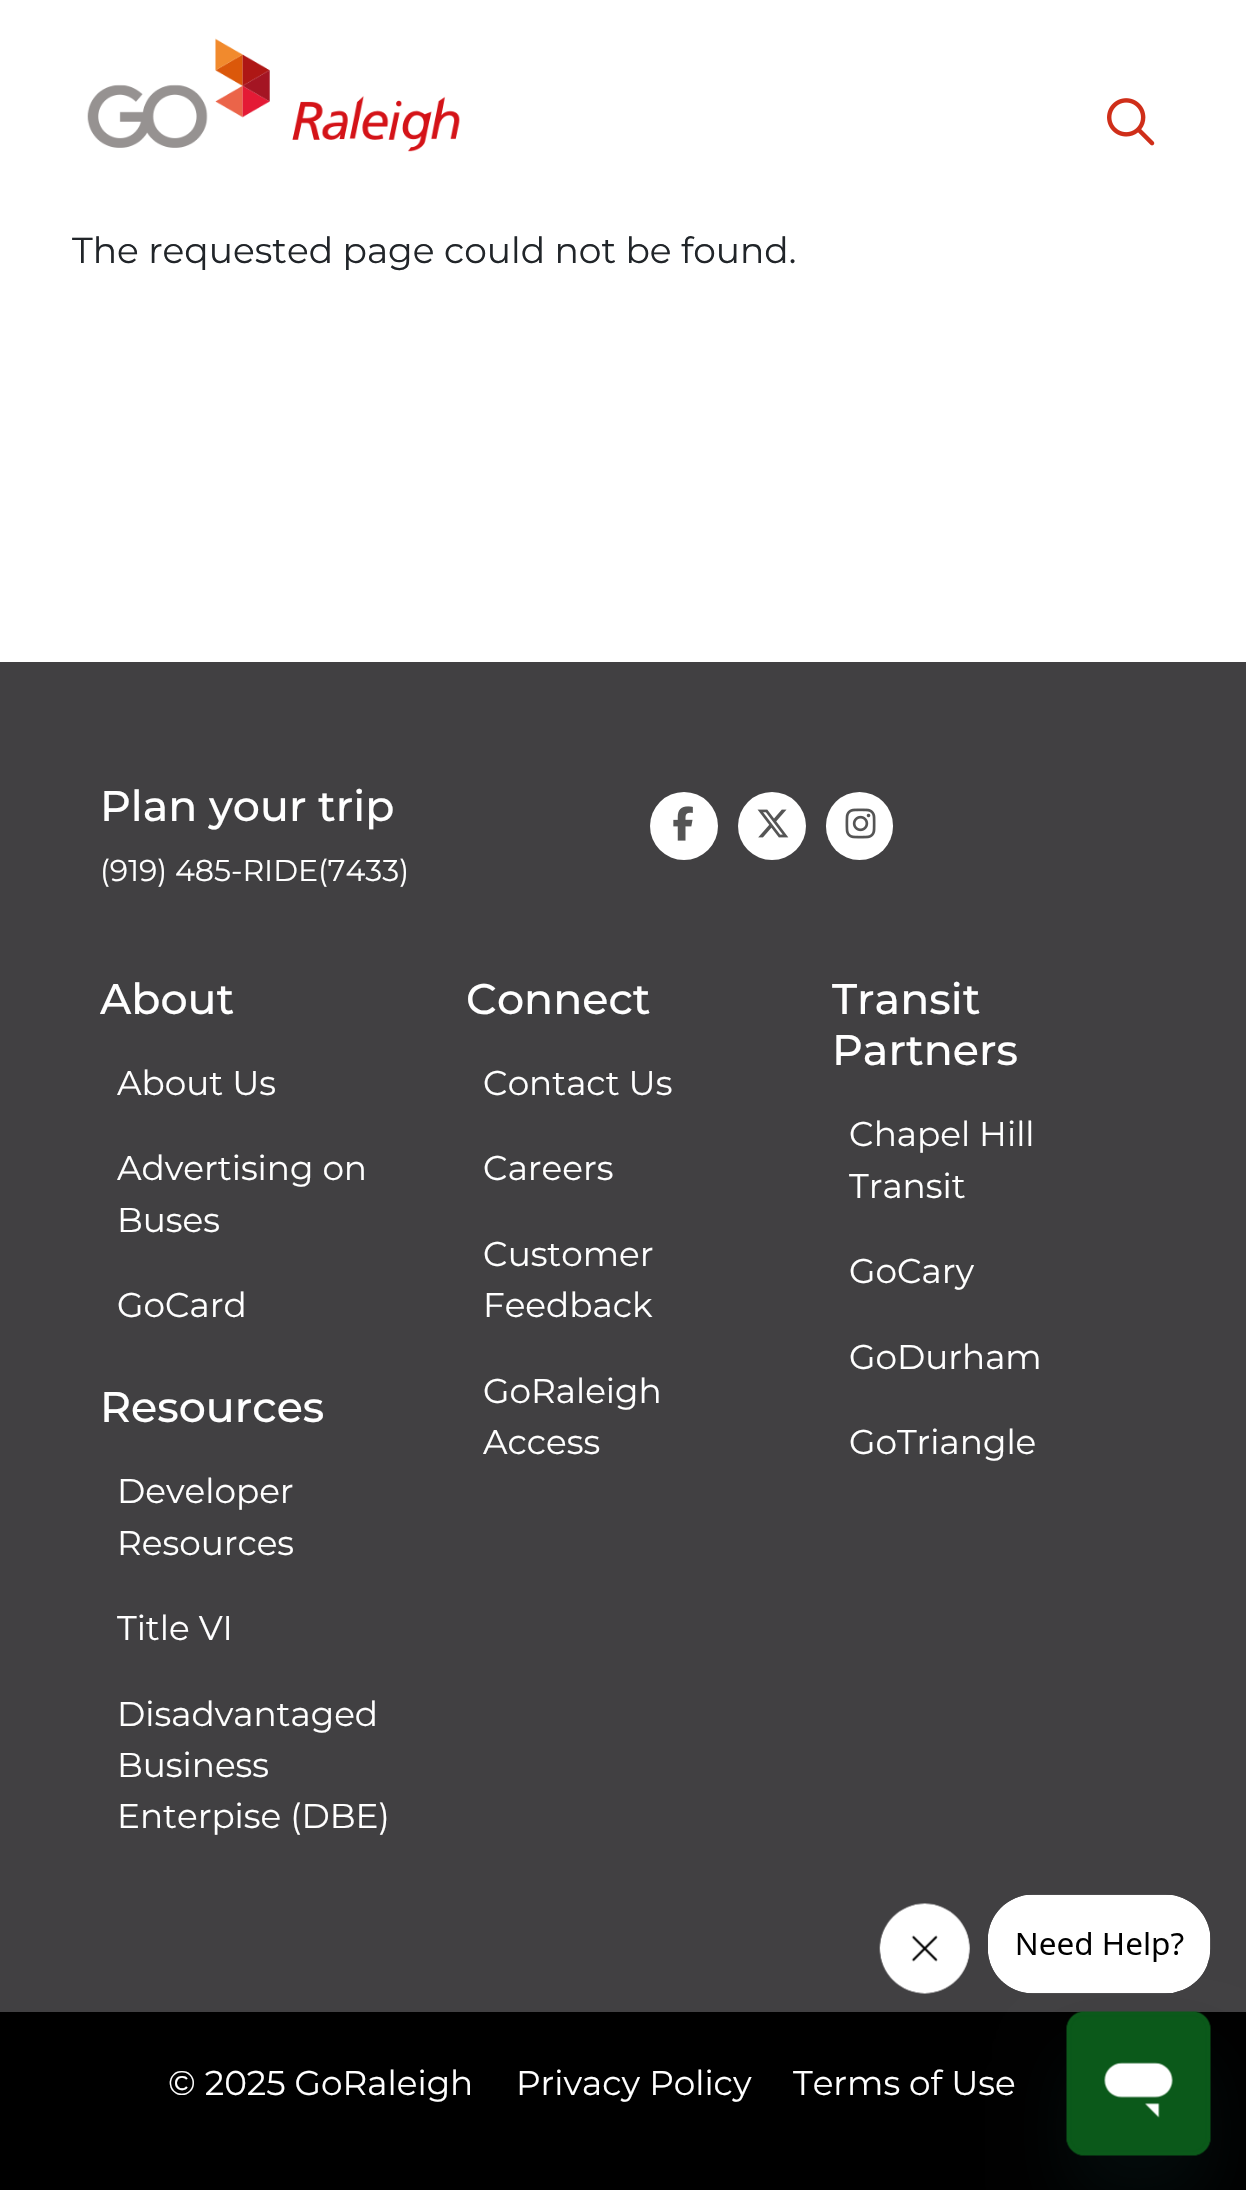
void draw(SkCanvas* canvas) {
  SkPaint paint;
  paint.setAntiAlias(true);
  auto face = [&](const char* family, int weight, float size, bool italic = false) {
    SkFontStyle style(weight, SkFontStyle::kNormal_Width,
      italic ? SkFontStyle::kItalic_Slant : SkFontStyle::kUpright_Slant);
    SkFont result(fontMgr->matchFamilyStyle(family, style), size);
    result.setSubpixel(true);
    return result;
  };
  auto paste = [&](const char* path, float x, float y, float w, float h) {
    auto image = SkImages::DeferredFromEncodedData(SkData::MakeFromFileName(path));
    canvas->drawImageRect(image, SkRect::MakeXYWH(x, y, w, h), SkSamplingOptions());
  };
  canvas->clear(0xffffffff);
  paste("img/1.png", 87, 38, 373, 114);
  paste("img/2.png", 1107, 98, 48, 48);
  paint.setColor(0xff414042);
  canvas->drawRect(SkRect::MakeXYWH(0, 662, 1246, 1350), paint);
  paint.setColor(0xffffffff);
  canvas->drawCircle(684, 826, 34, paint);
  paste("img/3.png", 673, 806, 20, 35);
  canvas->drawCircle(772, 826, 34, paint);
  paste("img/4.png", 757, 809, 32, 29);
  canvas->drawRoundRect(SkRect::MakeXYWH(826, 792, 67, 68), 33.5f, 33.5f, paint);
  paste("img/5.png", 845, 808, 31, 31);
  paint.setColor(0xff000000);
  canvas->drawRect(SkRect::MakeXYWH(0, 2012, 1246, 178), paint);
  paste("img/6.png", 879, 1903, 91, 91);
  paste("img/7.png", 988, 1894, 223, 100);
  paint.setColor(0x2617494d);
  paint.setMaskFilter(SkMaskFilter::MakeBlur(kNormal_SkBlurStyle, 34));
  canvas->drawRoundRect(SkRect::MakeXYWH(1067, 2057, 144, 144), 18, 18, paint);
  paint.setMaskFilter(nullptr);
  paste("img/8.png", 1066, 2011, 145, 145);
  auto f0 = face("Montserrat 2", 100, 36);
  paint.setColor(0xff212529);
  canvas->drawString("The requested page could not be found.", 72, 263, f0, paint);
  auto f1 = face("Montserrat", 100, 42.75f);
  paint.setColor(0xffffffff);
  canvas->drawString("Plan your trip", 100, 821, f1, paint);
  auto f2 = face("Montserrat 2", 100, 30);
  canvas->drawString("(919) 485-RIDE(7433)", 100, 881, f2, paint);
  canvas->drawString("About", 100, 1014, f1, paint);
  auto f3 = face("Montserrat 2", 100, 34.25f);
  {
    const struct { const char* s; float x, y; } items[] = {
      {"About Us", 117, 1095},
      {"Advertising on", 117, 1180},
      {"Buses", 117, 1232},
      {"GoCard", 117, 1317},
    };
    for (auto [s, x, y] : items) {
      canvas->drawString(s, x, y, f3, paint);
    }
  }
  canvas->drawString("Resources", 100, 1422, f1, paint);
  {
    const struct { const char* s; float x, y; } items[] = {
      {"Developer", 117, 1503},
      {"Resources", 117, 1555},
      {"Title VI", 117, 1640},
      {"Disadvantaged", 117, 1726},
      {"Business", 117, 1777},
      {"Enterpise (DBE)", 117, 1828},
    };
    for (auto [s, x, y] : items) {
      canvas->drawString(s, x, y, f3, paint);
    }
  }
  canvas->drawString("Connect", 466, 1014, f1, paint);
  {
    const struct { const char* s; float x, y; } items[] = {
      {"Contact Us", 483, 1095},
      {"Careers", 483, 1180},
      {"Customer", 483, 1266},
      {"Feedback", 483, 1317},
      {"GoRaleigh", 483, 1403},
      {"Access", 483, 1454},
    };
    for (auto [s, x, y] : items) {
      canvas->drawString(s, x, y, f3, paint);
    }
  }
  canvas->drawString("Transit", 832, 1014, f1, paint);
  canvas->drawString("Partners", 832, 1065, f1, paint);
  {
    const struct { const char* s; float x, y; } items[] = {
      {"Chapel Hill", 849, 1146},
      {"Transit", 849, 1198},
      {"GoCary", 849, 1283},
      {"GoDurham", 849, 1369},
      {"GoTriangle", 849, 1454},
      {"© 2025 GoRaleigh", 168, 2095},
      {"Privacy Policy", 516, 2095},
      {"Terms of Use", 793, 2095},
    };
    for (auto [s, x, y] : items) {
      canvas->drawString(s, x, y, f3, paint);
    }
  }
}
